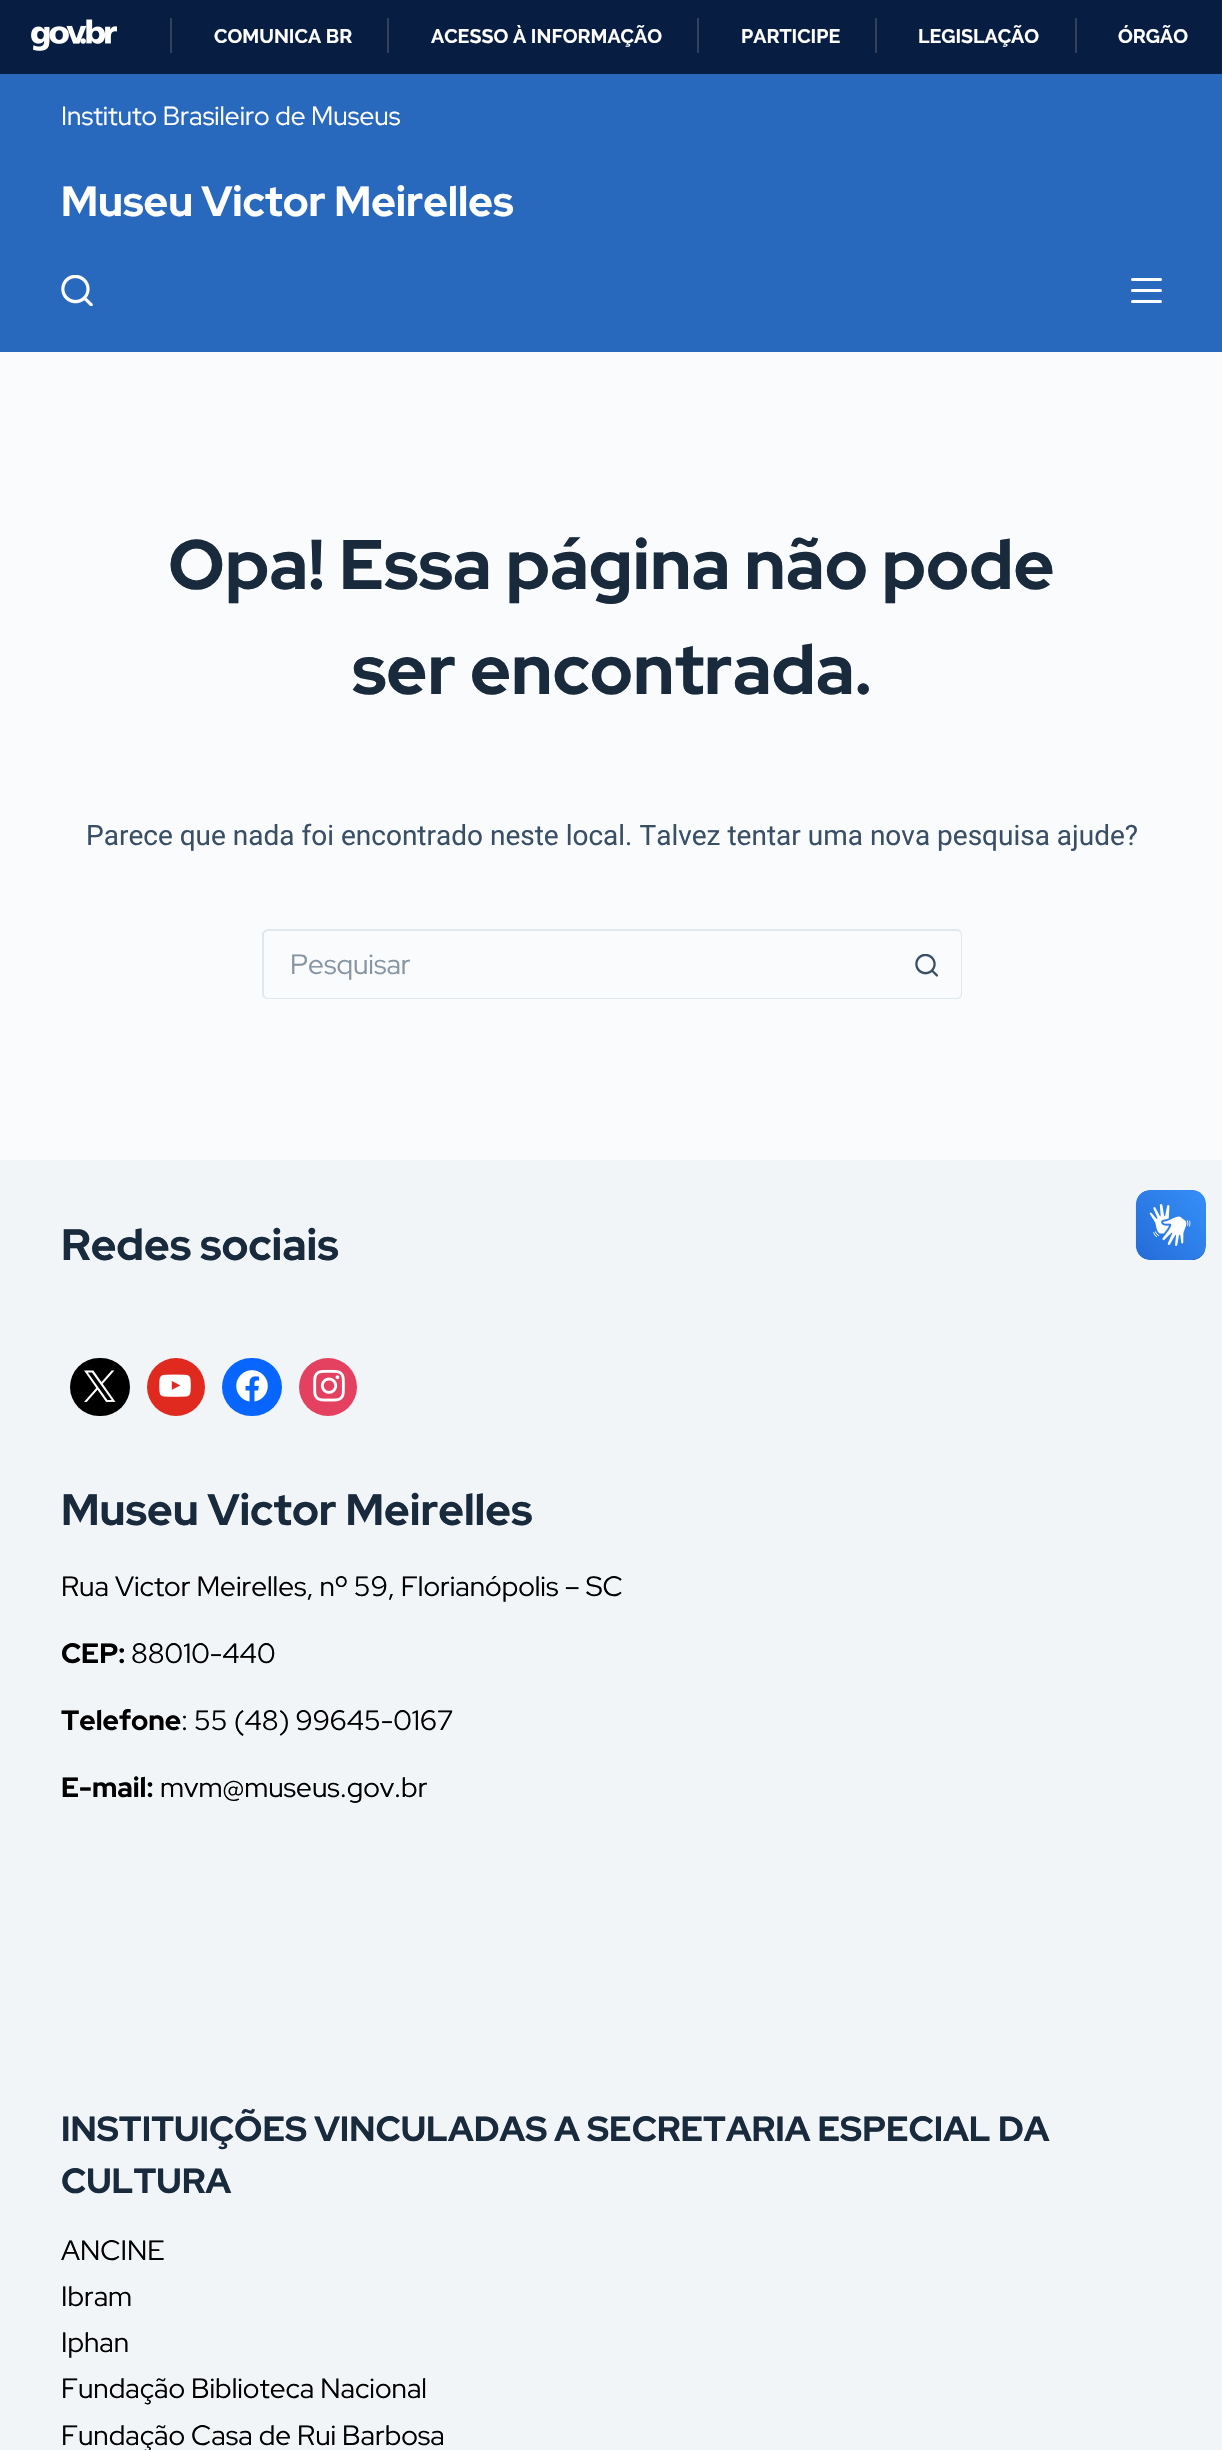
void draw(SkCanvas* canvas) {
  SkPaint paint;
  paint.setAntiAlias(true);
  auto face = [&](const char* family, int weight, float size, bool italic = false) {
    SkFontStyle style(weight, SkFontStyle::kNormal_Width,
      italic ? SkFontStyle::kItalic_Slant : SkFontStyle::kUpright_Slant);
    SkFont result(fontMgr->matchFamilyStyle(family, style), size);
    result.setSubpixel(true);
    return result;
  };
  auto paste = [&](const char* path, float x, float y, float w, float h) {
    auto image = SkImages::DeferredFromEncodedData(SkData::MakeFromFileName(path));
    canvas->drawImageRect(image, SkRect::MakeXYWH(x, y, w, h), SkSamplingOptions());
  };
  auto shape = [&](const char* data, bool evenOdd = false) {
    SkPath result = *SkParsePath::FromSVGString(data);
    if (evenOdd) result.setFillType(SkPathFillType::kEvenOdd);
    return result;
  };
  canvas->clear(0xfffafbfc);
  paint.setColor(0xff071d41);
  canvas->drawRect(SkRect::MakeXYWH(0, 0, 1222, 74), paint);
  paste("img/1.png", 31, 19, 86, 32);
  {
    const struct { float x, y, w, h; SkColor color; } items[] = {
      {170, 18, 2, 35, 0xff32425b},
      {387, 18, 2, 35, 0xff32425b},
      {697, 18, 2, 35, 0xff32425b},
      {875, 18, 2, 35, 0xff32425b},
      {1075, 18, 2, 35, 0xff32425b},
      {0, 74, 1222, 278, 0xff2969bd},
    };
    for (auto [x, y, w, h, color] : items) {
      paint.setColor(color);
      canvas->drawRect(SkRect::MakeXYWH(x, y, w, h), paint);
    }
  }
  paste("img/2.png", 61, 275, 32, 31);
  paint.setColor(0xffffffff);
  canvas->drawRoundRect(SkRect::MakeXYWH(1131, 278, 31, 3), 1.5f, 1.5f, paint);
  canvas->drawRoundRect(SkRect::MakeXYWH(1131, 289, 31, 3), 1.5f, 1.5f, paint);
  canvas->drawRoundRect(SkRect::MakeXYWH(1131, 300, 31, 3), 1.5f, 1.5f, paint);
  paint.setColor(0xffe1e8ed);
  canvas->drawPath(shape("M268 929H892V999H268C265 999 262 997 262 994V934C262 932 265 929 268 929ZM268 931H892V998H268C266 998 264 996 264 994V934C264 933 266 931 268 931Z", true), paint);
  canvas->drawPath(shape("M892 929H957C960 929 962 932 962 934V994C962 997 960 999 957 999H892ZM892 931H957C959 931 961 933 961 934V994C961 996 959 998 957 998H892Z", true), paint);
  paste("img/3.png", 915, 954, 23, 23);
  paint.setColor(0xfff2f5f7);
  canvas->drawRect(SkRect::MakeXYWH(0, 1160, 1222, 1290), paint);
  paint.setColor(0xff000000);
  canvas->drawRoundRect(SkRect::MakeXYWH(70, 1358, 60, 58), 29, 29, paint);
  paste("img/4.png", 84, 1370, 32, 32);
  paint.setColor(0xffe02a20);
  canvas->drawCircle(176, 1387, 29, paint);
  paste("img/5.png", 159, 1374, 32, 23);
  paint.setColor(0xff0866ff);
  canvas->drawRoundRect(SkRect::MakeXYWH(222, 1358, 60, 58), 29, 29, paint);
  paste("img/6.png", 236, 1370, 32, 32);
  paint.setColor(0xffe4405f);
  canvas->drawCircle(328, 1387, 29, paint);
  paste("img/7.png", 313, 1369, 32, 33);
  paste("img/8.png", 1135, 1190, 71, 70);
  paste("img/9.png", 1136, 1190, 70, 70);
  auto f0 = face("Raleway", 700, 19.6f);
  paint.setColor(0xffffffff);
  {
    const struct { const char* s; float x, y; } items[] = {
      {"COMUNICA BR", 214, 43},
      {"ACESSO À INFORMAÇÃO", 431, 43},
      {"PARTICIPE", 741, 43},
      {"LEGISLAÇÃO", 918, 43},
      {"ÓRGÃO", 1118, 43},
    };
    for (auto [s, x, y] : items) {
      canvas->drawString(s, x, y, f0, paint);
    }
  }
  auto f1 = face("Red Hat Display", 400, 26.25f);
  canvas->drawString("Instituto Brasileiro de Museus", 61, 125, f1, paint);
  auto f2 = face("Red Hat Display", 700, 42);
  canvas->drawString("Museu Victor Meirelles", 61, 216, f2, paint);
  auto f3 = face("Red Hat Display", 700, 70);
  paint.setColor(0xff192a3d);
  canvas->drawString("Opa! Essa página não pode", 168, 589, f3, paint);
  canvas->drawString("ser encontrada.", 352, 694, f3, paint);
  auto f4 = face("Roboto", 400, 28);
  paint.setColor(0xff3a4f66);
  canvas->drawString("Parece que nada foi encontrado neste local. Talvez tentar uma nova pesquisa ajude?", 86, 845, f4, paint);
  auto f5 = face("Red Hat Display", 400, 28);
  paint.setColor(0xff8794a2);
  canvas->drawString("Pesquisar", 290, 974, f5, paint);
  auto f6 = face("Red Hat Display", 700, 43.75f);
  paint.setColor(0xff192a3d);
  canvas->drawString("Redes sociais", 61, 1260, f6, paint);
  canvas->drawString("Museu Victor Meirelles", 61, 1525, f6, paint);
  paint.setColor(0xff000000);
  canvas->drawString("Rua Victor Meirelles, nº 59, Florianópolis – SC", 61, 1596, f5, paint);
  auto f7 = face("Red Hat Display", 700, 28);
  canvas->drawString("CEP:", 61, 1663, f7, paint);
  canvas->drawString("88010-440", 131, 1663, f5, paint);
  canvas->drawString("Telefone", 61, 1730, f7, paint);
  canvas->drawString(": 55 (48) 99645-0167", 181, 1730, f5, paint);
  canvas->drawString("E-mail:", 61, 1797, f7, paint);
  canvas->drawString("mvm@museus.gov.br", 160, 1797, f5, paint);
  auto f8 = face("Red Hat Display", 700, 35);
  paint.setColor(0xff192a3d);
  canvas->drawString("INSTITUIÇÕES VINCULADAS A SECRETARIA ESPECIAL DA", 61, 2141, f8, paint);
  canvas->drawString("CULTURA", 61, 2193, f8, paint);
  paint.setColor(0xff000000);
  {
    const struct { const char* s; float x, y; } items[] = {
      {"ANCINE", 61, 2260},
      {"Ibram", 61, 2306},
      {"Iphan", 61, 2352},
      {"Fundação Biblioteca Nacional", 61, 2398},
      {"Fundação Casa de Rui Barbosa", 61, 2445},
    };
    for (auto [s, x, y] : items) {
      canvas->drawString(s, x, y, f5, paint);
    }
  }
}
